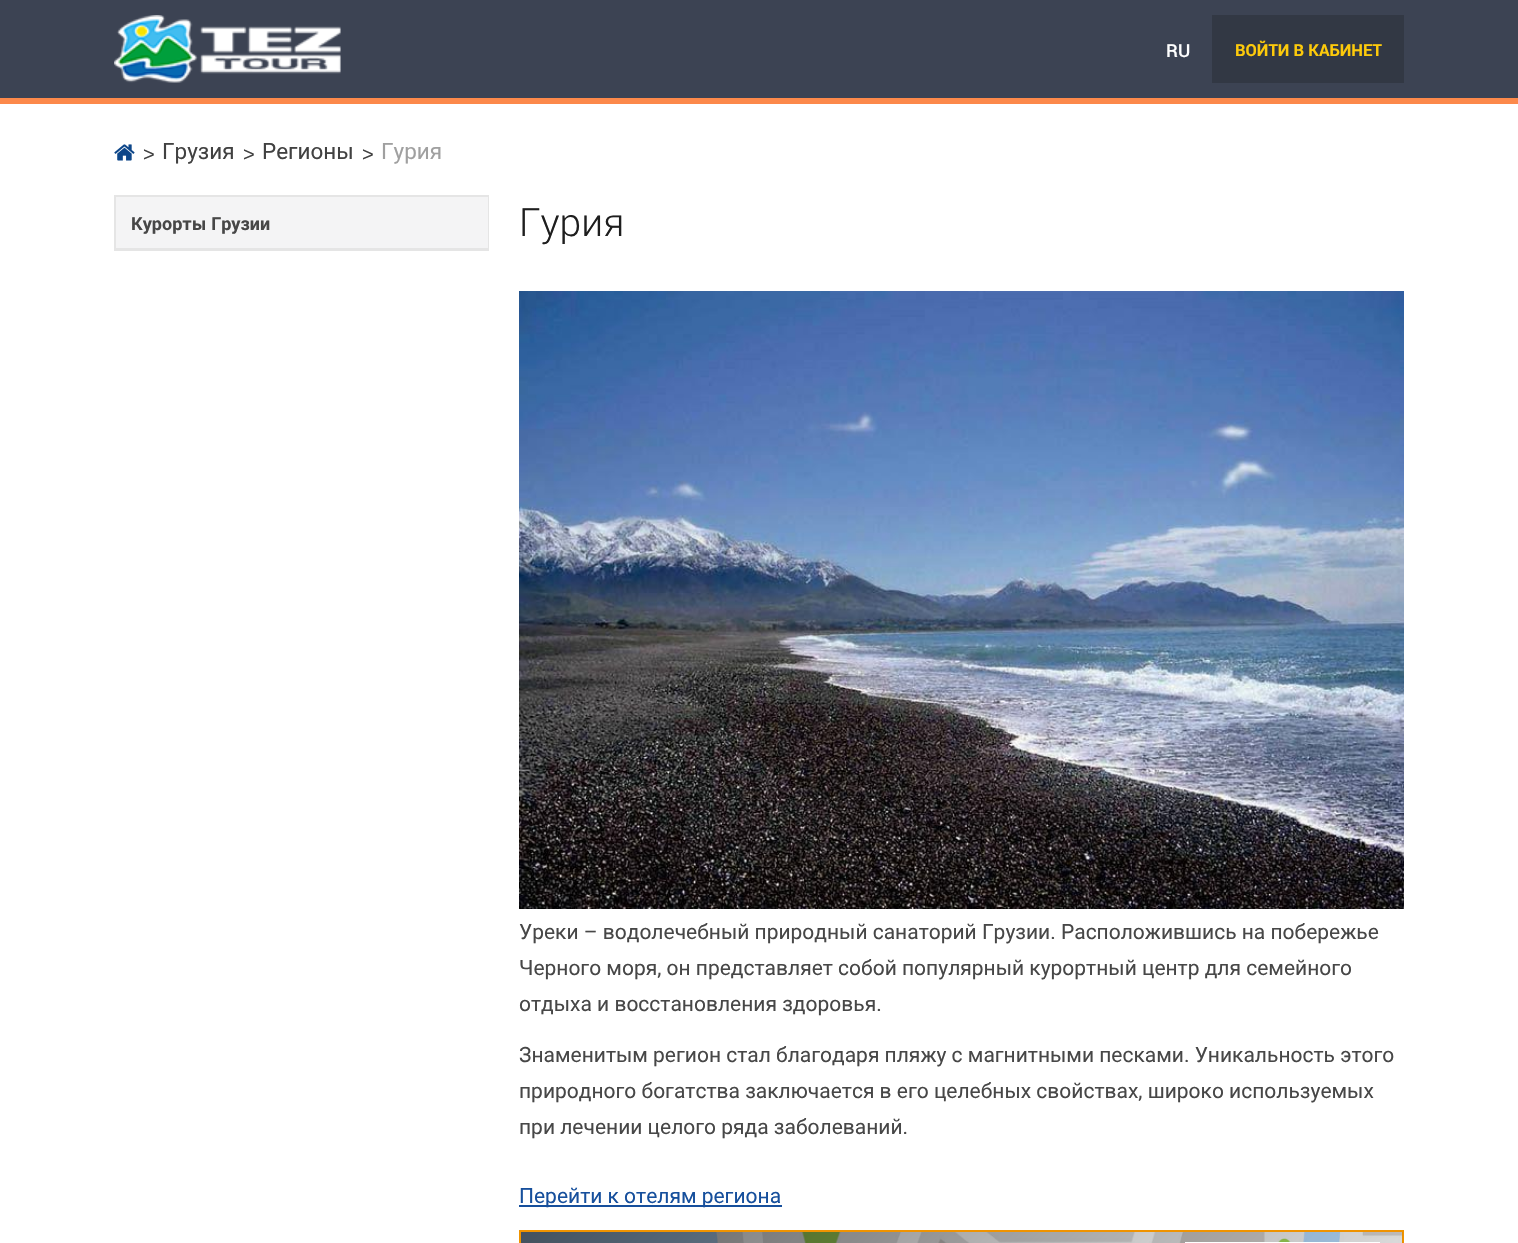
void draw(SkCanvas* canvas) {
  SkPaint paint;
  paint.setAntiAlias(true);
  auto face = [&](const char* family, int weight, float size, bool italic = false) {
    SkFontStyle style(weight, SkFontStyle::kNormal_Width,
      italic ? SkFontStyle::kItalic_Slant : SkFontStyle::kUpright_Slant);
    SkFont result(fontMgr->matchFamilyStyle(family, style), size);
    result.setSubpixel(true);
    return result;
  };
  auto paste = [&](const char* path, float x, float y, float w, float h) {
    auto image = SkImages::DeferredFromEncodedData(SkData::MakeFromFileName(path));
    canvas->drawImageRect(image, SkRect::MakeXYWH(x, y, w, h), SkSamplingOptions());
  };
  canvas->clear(0xffffffff);
  paint.setColor(0xff3c4353);
  canvas->drawRect(SkRect::MakeXYWH(0, 0, 1518, 98), paint);
  paste("img/1.png", 114, 15, 227, 68);
  paint.setColor(0xff323844);
  canvas->drawRect(SkRect::MakeXYWH(1212, 15, 192, 68), paint);
  paint.setColor(0xfffc894b);
  canvas->drawRect(SkRect::MakeXYWH(0, 98, 1518, 6), paint);
  paste("img/2.png", 114, 144, 21, 17);
  paint.setStroke(true);
  paint.setStrokeWidth(2);
  paint.setColor(0xffe5e5e5);
  canvas->drawRect(SkRect::MakeXYWH(115, 196, 373, 54), paint);
  paint.setStroke(false);
  paint.setColor(0xfff4f4f5);
  canvas->drawRect(SkRect::MakeXYWH(116, 197, 372, 51), paint);
  paint.setColor(0xffe5e5e5);
  canvas->drawRect(SkRect::MakeXYWH(116, 248, 372, 1), paint);
  paste("img/3.png", 519, 291, 885, 618);
  paint.setColor(0xff164f9c);
  canvas->drawRect(SkRect::MakeXYWH(519, 1205, 263, 2), paint);
  paste("img/4.png", 521, 1232, 881, 11);
  paint.setStroke(true);
  paint.setColor(0xffef9300);
  canvas->drawRect(SkRect::MakeXYWH(520, 1231, 883, 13), paint);
  paint.setStroke(false);
  {
    const SkColor colors[] = {0x99000000, 0x00000000};
    const float stops[] = {0, 1};
    const SkPoint ends[] = {{726, 1026}, {1197, 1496}};
    paint.setShader(SkGradientShader::MakeLinear(ends, colors, stops, 2, SkTileMode::kClamp));
    paint.setAlpha(255);
  }
  canvas->drawRect(SkRect::MakeXYWH(521, 1232, 882, 11), paint);
  paint.setShader(nullptr);
  paint.setColor(0xffffffff);
  canvas->drawRect(SkRect::MakeXYWH(1185, 1242, 195, 1), paint);
  auto f0 = face("Roboto", 500, 18);
  canvas->drawString("RU", 1166, 57, f0, paint);
  auto f1 = face("Roboto", 700, 16.5f);
  paint.setColor(0xfffdca0b);
  canvas->drawString("ВОЙТИ В КАБИНЕТ", 1235, 56, f1, paint);
  auto f2 = face("Liberation Sans", 400, 20);
  paint.setColor(0xff414141);
  canvas->drawString(">", 143, 161, f2, paint);
  auto f3 = face("Roboto", 400, 22.5f);
  canvas->drawString("Грузия", 162, 159, f3, paint);
  canvas->drawString(">", 243, 161, f2, paint);
  canvas->drawString("Регионы", 262, 159, f3, paint);
  canvas->drawString(">", 362, 161, f2, paint);
  paint.setColor(0xffa0a0a0);
  canvas->drawString("Гурия", 381, 159, f3, paint);
  auto f4 = face("Roboto", 700, 18);
  paint.setColor(0xff474747);
  canvas->drawString("Курорты Грузии", 131, 230, f4, paint);
  auto f5 = face("Roboto", 300, 39);
  paint.setColor(0xff1e1e1e);
  canvas->drawString("Гурия", 519, 236, f5, paint);
  auto f6 = face("Roboto", 400, 21);
  paint.setColor(0xff474747);
  {
    const struct { const char* s; float x, y; } items[] = {
      {"Уреки – водолечебный природный санаторий Грузии. Расположившись на побережье", 519, 939},
      {"Черного моря, он представляет собой популярный курортный центр для семейного", 519, 975},
      {"отдыха и восстановления здоровья.", 519, 1011},
      {"Знаменитым регион стал благодаря пляжу с магнитными песками. Уникальность этого", 519, 1062},
      {"природного богатства заключается в его целебных свойствах, широко используемых", 519, 1098},
      {"при лечении целого ряда заболеваний.", 519, 1134},
    };
    for (auto [s, x, y] : items) {
      canvas->drawString(s, x, y, f6, paint);
    }
  }
  paint.setColor(0xff164f9c);
  canvas->drawString("Перейти к отелям региона", 519, 1203, f6, paint);
}
